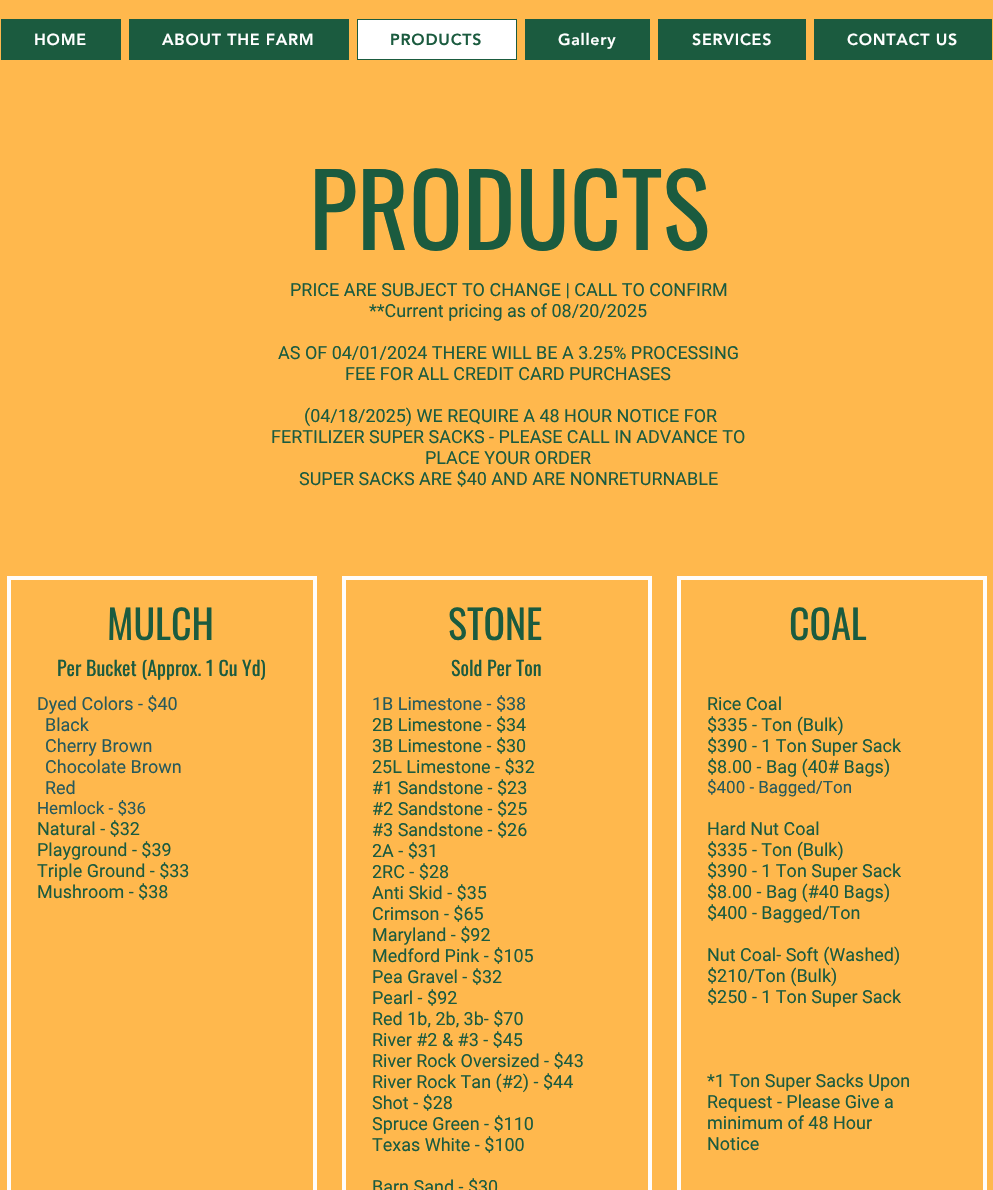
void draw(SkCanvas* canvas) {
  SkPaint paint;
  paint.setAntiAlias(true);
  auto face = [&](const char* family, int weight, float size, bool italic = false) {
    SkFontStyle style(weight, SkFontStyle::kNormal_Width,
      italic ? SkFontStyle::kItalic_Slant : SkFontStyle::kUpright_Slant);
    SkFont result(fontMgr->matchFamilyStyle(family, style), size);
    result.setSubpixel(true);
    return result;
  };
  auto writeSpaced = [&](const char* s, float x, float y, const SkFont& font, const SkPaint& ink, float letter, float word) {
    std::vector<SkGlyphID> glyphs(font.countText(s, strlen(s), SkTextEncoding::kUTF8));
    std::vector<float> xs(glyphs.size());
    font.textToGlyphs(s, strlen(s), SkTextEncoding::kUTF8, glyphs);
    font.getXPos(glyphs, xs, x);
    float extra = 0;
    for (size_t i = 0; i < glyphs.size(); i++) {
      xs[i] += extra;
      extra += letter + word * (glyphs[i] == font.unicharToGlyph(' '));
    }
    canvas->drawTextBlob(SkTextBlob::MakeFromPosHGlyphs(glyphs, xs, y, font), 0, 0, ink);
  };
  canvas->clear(0xffffb84d);
  paint.setColor(0xff1b5b3f);
  canvas->drawRect(SkRect::MakeXYWH(1, 19, 120, 41), paint);
  canvas->drawRect(SkRect::MakeXYWH(129, 19, 220, 41), paint);
  paint.setColor(0xffffffff);
  canvas->drawRect(SkRect::MakeXYWH(357.5f, 19.5f, 159, 40), paint);
  paint.setStroke(true);
  paint.setStrokeWidth(1);
  paint.setColor(0xff1b5b3f);
  canvas->drawRect(SkRect::MakeXYWH(357.5f, 19.5f, 159, 40), paint);
  paint.setStroke(false);
  {
    const struct { float x, y, w, h; SkColor color; } items[] = {
      {525, 19, 125, 41, 0xff1b5b3f},
      {658, 19, 148, 41, 0xff1b5b3f},
      {814, 19, 178, 41, 0xff1b5b3f},
    };
    for (auto [x, y, w, h, color] : items) {
      paint.setColor(color);
      canvas->drawRect(SkRect::MakeXYWH(x, y, w, h), paint);
    }
  }
  paint.setStroke(true);
  paint.setStrokeWidth(4);
  paint.setColor(0xfffffdfb);
  canvas->drawRect(SkRect::MakeXYWH(9, 578, 306, 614), paint);
  canvas->drawRect(SkRect::MakeXYWH(344, 578, 306, 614), paint);
  canvas->drawRect(SkRect::MakeXYWH(679, 578, 306, 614), paint);
  auto f0 = face("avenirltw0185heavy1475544", 900, 16);
  paint.setStroke(false);
  paint.setColor(0xffffffff);
  writeSpaced("HOME", 34, 45, f0, paint, 0.75f, 0);
  writeSpaced("ABOUT THE FARM", 162, 45, f0, paint, 0.75f, 0);
  paint.setColor(0xff1b5b3f);
  writeSpaced("PRODUCTS", 390, 45, f0, paint, 0.75f, 0);
  paint.setColor(0xffffffff);
  {
    const struct { const char* s; float x, y; } items[] = {
      {"Gallery", 558, 45},
      {"SERVICES", 692, 45},
      {"CONTACT US", 847, 45},
    };
    for (auto [s, x, y] : items) {
      writeSpaced(s, x, y, f0, paint, 0.75f, 0);
    }
  }
  auto f1 = face("Oswald", 400, 100);
  paint.setColor(0xff1b5b3f);
  canvas->drawString("PRODUCTS", 309, 250, f1, paint);
  auto f2 = face("Roboto", 400, 18);
  {
    const struct { const char* s; float x, y; } items[] = {
      {"PRICE ARE SUBJECT TO CHANGE | CALL TO CONFIRM", 290, 296},
      {"**Current pricing as of 08/20/2025", 369, 317},
      {"AS OF 04/01/2024 THERE WILL BE A 3.25% PROCESSING", 278, 359},
      {"FEE FOR ALL CREDIT CARD PURCHASES", 345, 380},
      {"(04/18/2025) WE REQUIRE A 48 HOUR NOTICE FOR", 304, 422},
      {"FERTILIZER SUPER SACKS - PLEASE CALL IN ADVANCE TO", 271, 443},
      {"PLACE YOUR ORDER", 425, 464},
      {"SUPER SACKS ARE $40 AND ARE NONRETURNABLE", 299, 485},
    };
    for (auto [s, x, y] : items) {
      canvas->drawString(s, x, y, f2, paint);
    }
  }
  auto f3 = face("Oswald", 400, 40);
  canvas->drawString("MULCH", 107, 640, f3, paint);
  auto f4 = face("Oswald", 400, 20);
  canvas->drawString("Per Bucket (Approx. 1 Cu Yd)", 57, 676, f4, paint);
  paint.setColor(0xff285a5b);
  {
    const struct { const char* s; float x, y; } items[] = {
      {"Dyed Colors - $40", 37, 710},
      {"Black", 45, 731},
      {"Cherry Brown", 45, 752},
      {"Chocolate Brown", 45, 773},
      {"Red", 45, 794},
    };
    for (auto [s, x, y] : items) {
      canvas->drawString(s, x, y, f2, paint);
    }
  }
  auto f5 = face("Roboto", 400, 17);
  canvas->drawString("Hemlock - $36", 37, 814, f5, paint);
  paint.setColor(0xff1b5b3f);
  {
    const struct { const char* s; float x, y; } items[] = {
      {"Natural - $32", 37, 835},
      {"Playground - $39", 37, 856},
      {"Triple Ground - $33", 37, 877},
      {"Mushroom - $38", 37, 898},
    };
    for (auto [s, x, y] : items) {
      canvas->drawString(s, x, y, f2, paint);
    }
  }
  canvas->drawString("STONE", 448, 640, f3, paint);
  canvas->drawString("Sold Per Ton", 451, 676, f4, paint);
  paint.setColor(0xff285a5b);
  canvas->drawString("1B Limestone - $38", 372, 710, f2, paint);
  paint.setColor(0xff1b5b3f);
  {
    const struct { const char* s; float x, y; } items[] = {
      {"2B Limestone - $34", 372, 731},
      {"3B Limestone - $30", 372, 752},
      {"25L Limestone - $32", 372, 773},
      {"#1 Sandstone - $23", 372, 794},
      {"#2 Sandstone - $25", 372, 815},
      {"#3 Sandstone - $26", 372, 836},
      {"2A - $31", 372, 857},
      {"2RC - $28", 372, 878},
      {"Anti Skid - $35", 372, 899},
      {"Crimson - $65", 372, 920},
      {"Maryland - $92", 372, 941},
      {"Medford Pink - $105", 372, 962},
      {"Pea Gravel - $32", 372, 983},
      {"Pearl - $92", 372, 1004},
      {"Red 1b, 2b, 3b- $70", 372, 1025},
      {"River #2 & #3 - $45", 372, 1046},
      {"River Rock Oversized - $43", 372, 1067},
      {"River Rock Tan (#2) - $44", 372, 1088},
      {"Shot - $28", 372, 1109},
      {"Spruce Green - $110", 372, 1130},
      {"Texas White - $100", 372, 1151},
      {"Barn Sand - $30", 372, 1193},
    };
    for (auto [s, x, y] : items) {
      canvas->drawString(s, x, y, f2, paint);
    }
  }
  canvas->drawString("COAL", 789, 640, f3, paint);
  {
    const struct { const char* s; float x, y; } items[] = {
      {"Rice Coal", 707, 710},
      {"$335 - Ton (Bulk)", 707, 731},
      {"$390 - 1 Ton Super Sack", 707, 752},
      {"$8.00 - Bag (40# Bags)", 707, 773},
    };
    for (auto [s, x, y] : items) {
      canvas->drawString(s, x, y, f2, paint);
    }
  }
  paint.setColor(0xff285a5b);
  canvas->drawString("$400 - Bagged/Ton", 707, 793, f5, paint);
  paint.setColor(0xff1b5b3f);
  {
    const struct { const char* s; float x, y; } items[] = {
      {"Hard Nut Coal", 707, 835},
      {"$335 - Ton (Bulk)", 707, 856},
      {"$390 - 1 Ton Super Sack", 707, 877},
      {"$8.00 - Bag (#40 Bags)", 707, 898},
      {"$400 - Bagged/Ton", 707, 919},
      {"Nut Coal- Soft (Washed)", 707, 961},
      {"$210/Ton (Bulk)", 707, 982},
      {"$250 - 1 Ton Super Sack", 707, 1003},
      {"*1 Ton Super Sacks Upon", 707, 1087},
      {"Request - Please Give a", 707, 1108},
      {"minimum of 48 Hour", 707, 1129},
      {"Notice", 707, 1150},
    };
    for (auto [s, x, y] : items) {
      canvas->drawString(s, x, y, f2, paint);
    }
  }
}
